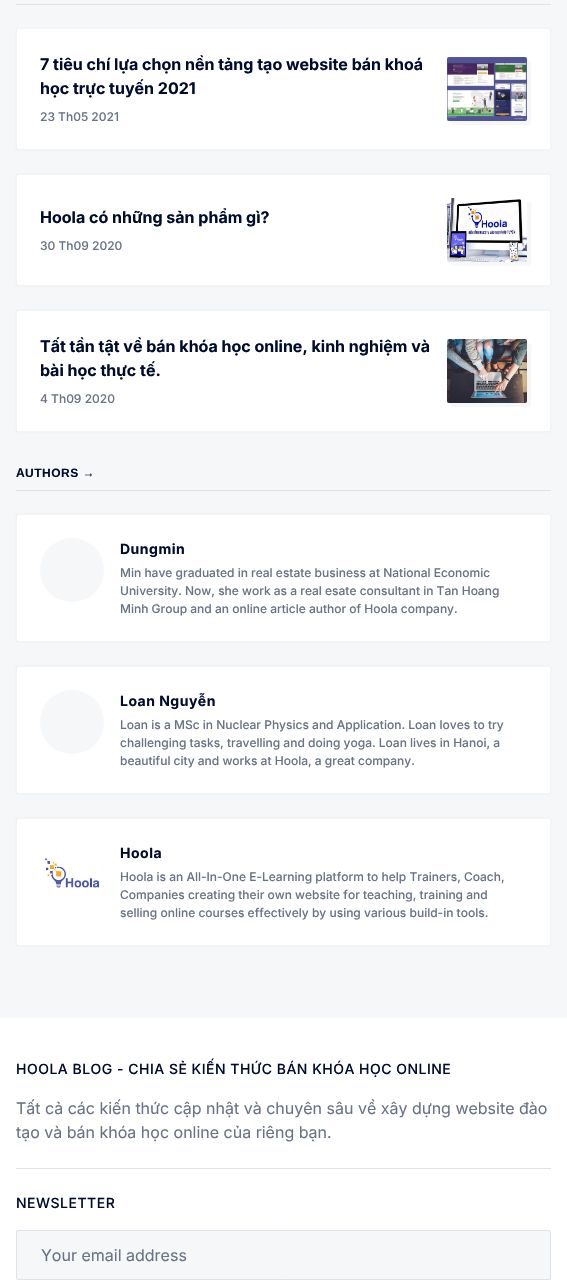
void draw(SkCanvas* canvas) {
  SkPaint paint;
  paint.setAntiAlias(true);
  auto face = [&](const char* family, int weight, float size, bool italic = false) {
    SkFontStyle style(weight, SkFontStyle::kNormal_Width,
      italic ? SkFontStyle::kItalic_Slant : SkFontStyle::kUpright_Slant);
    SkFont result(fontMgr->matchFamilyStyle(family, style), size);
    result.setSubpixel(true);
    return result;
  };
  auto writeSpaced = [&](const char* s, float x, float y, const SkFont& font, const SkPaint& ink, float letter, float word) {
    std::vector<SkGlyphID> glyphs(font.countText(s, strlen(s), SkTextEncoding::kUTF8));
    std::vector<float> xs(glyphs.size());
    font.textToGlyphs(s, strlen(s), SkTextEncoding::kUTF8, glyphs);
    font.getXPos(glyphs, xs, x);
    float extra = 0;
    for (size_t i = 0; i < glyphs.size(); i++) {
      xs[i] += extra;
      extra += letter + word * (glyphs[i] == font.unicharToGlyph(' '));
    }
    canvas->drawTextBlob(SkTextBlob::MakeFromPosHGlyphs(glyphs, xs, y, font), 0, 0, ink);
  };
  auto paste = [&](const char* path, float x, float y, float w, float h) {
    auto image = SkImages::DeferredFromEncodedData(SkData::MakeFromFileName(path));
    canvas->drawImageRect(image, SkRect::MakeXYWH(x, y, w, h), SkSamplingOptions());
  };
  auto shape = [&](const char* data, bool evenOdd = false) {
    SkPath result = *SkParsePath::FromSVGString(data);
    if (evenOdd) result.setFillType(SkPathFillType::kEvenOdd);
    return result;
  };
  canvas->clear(0xfff5f7f9);
  paint.setColor(0xffdfe3e9);
  canvas->drawRect(SkRect::MakeXYWH(16, 4, 535, 1), paint);
  paint.setColor(0xffffffff);
  canvas->drawRoundRect(SkRect::MakeXYWH(16.25f, 28.25f, 534.5f, 121.5f), 1.75f, 1.75f, paint);
  paint.setStroke(true);
  paint.setStrokeWidth(0.5f);
  paint.setColor(0xffdfe3e9);
  canvas->drawRoundRect(SkRect::MakeXYWH(16.25f, 28.25f, 534.5f, 121.5f), 1.75f, 1.75f, paint);
  paint.setStroke(false);
  paint.setColor(0xfff5f7f9);
  canvas->drawRect(SkRect::MakeXYWH(447, 57, 80, 64), paint);
  canvas->drawPath(shape("M451 121V124L453 125H516C533 125 531 128 531 113V73C531 66 534 61 527 61V119C527 120 526 121 525 121Z"), paint);
  paste("img/1.png", 447, 57, 80, 64);
  paint.setColor(0xffffffff);
  canvas->drawRoundRect(SkRect::MakeXYWH(16.25f, 174.25f, 534.5f, 111.5f), 1.75f, 1.75f, paint);
  paint.setStroke(true);
  paint.setColor(0xffdfe3e9);
  canvas->drawRoundRect(SkRect::MakeXYWH(16.25f, 174.25f, 534.5f, 111.5f), 1.75f, 1.75f, paint);
  paint.setStroke(false);
  paint.setColor(0xfff5f7f9);
  canvas->drawRect(SkRect::MakeXYWH(447, 198, 80, 64), paint);
  canvas->drawPath(shape("M451 262V265L453 266H516C533 266 531 269 531 254V214C531 207 534 202 527 202V260C527 261 526 262 525 262Z"), paint);
  paste("img/2.png", 447, 198, 80, 64);
  paint.setColor(0xffffffff);
  canvas->drawRoundRect(SkRect::MakeXYWH(16.25f, 310.25f, 534.5f, 121.5f), 1.75f, 1.75f, paint);
  paint.setStroke(true);
  paint.setColor(0xffdfe3e9);
  canvas->drawRoundRect(SkRect::MakeXYWH(16.25f, 310.25f, 534.5f, 121.5f), 1.75f, 1.75f, paint);
  paint.setStroke(false);
  paint.setColor(0xfff5f7f9);
  canvas->drawRect(SkRect::MakeXYWH(447, 339, 80, 64), paint);
  canvas->drawPath(shape("M451 403V406L453 407H516C533 407 531 410 531 395V355C531 348 534 343 527 343V401C527 402 526 403 525 403Z"), paint);
  paste("img/3.png", 447, 339, 80, 64);
  paint.setColor(0xffdfe3e9);
  canvas->drawRect(SkRect::MakeXYWH(16, 490, 535, 1), paint);
  paint.setColor(0xffffffff);
  canvas->drawRoundRect(SkRect::MakeXYWH(16.25f, 514.25f, 534.5f, 127.5f), 1.75f, 1.75f, paint);
  paint.setStroke(true);
  paint.setColor(0xffdfe3e9);
  canvas->drawRoundRect(SkRect::MakeXYWH(16.25f, 514.25f, 534.5f, 127.5f), 1.75f, 1.75f, paint);
  paint.setStroke(false);
  paint.setColor(0xfff5f7f9);
  canvas->drawCircle(72, 570, 32, paint);
  paint.setColor(0xffffffff);
  canvas->drawRoundRect(SkRect::MakeXYWH(16.25f, 666.25f, 534.5f, 127.5f), 1.75f, 1.75f, paint);
  paint.setStroke(true);
  paint.setColor(0xffdfe3e9);
  canvas->drawRoundRect(SkRect::MakeXYWH(16.25f, 666.25f, 534.5f, 127.5f), 1.75f, 1.75f, paint);
  paint.setStroke(false);
  paint.setColor(0xfff5f7f9);
  canvas->drawCircle(72, 722, 32, paint);
  paint.setColor(0xffffffff);
  canvas->drawRoundRect(SkRect::MakeXYWH(16.25f, 818.25f, 534.5f, 127.5f), 1.75f, 1.75f, paint);
  paint.setStroke(true);
  paint.setColor(0xffdfe3e9);
  canvas->drawRoundRect(SkRect::MakeXYWH(16.25f, 818.25f, 534.5f, 127.5f), 1.75f, 1.75f, paint);
  paint.setStroke(false);
  paint.setColor(0xfff5f7f9);
  canvas->drawCircle(72, 874, 32, paint);
  paste("img/4.png", 40, 842, 64, 64);
  paint.setColor(0xffffffff);
  canvas->drawRect(SkRect::MakeXYWH(0, 1018, 567, 263), paint);
  paint.setColor(0xffdfe3e9);
  canvas->drawRect(SkRect::MakeXYWH(16, 1168, 535, 1), paint);
  paint.setColor(0xfff5f7f9);
  canvas->drawRoundRect(SkRect::MakeXYWH(16.5f, 1230.5f, 534, 49), 1.5f, 1.5f, paint);
  paint.setStroke(true);
  paint.setStrokeWidth(1);
  paint.setColor(0xffdfe3e9);
  canvas->drawRoundRect(SkRect::MakeXYWH(16.5f, 1230.5f, 534, 49), 1.5f, 1.5f, paint);
  auto f0 = face("Inter", 700, 16);
  paint.setStroke(false);
  paint.setColor(0xff000c2d);
  canvas->drawString("7 tiêu chí lựa chọn nền tảng tạo website bán khoá", 40, 70, f0, paint);
  canvas->drawString("học trực tuyến 2021", 40, 94, f0, paint);
  auto f1 = face("Inter", 500, 12);
  paint.setColor(0xff687385);
  canvas->drawString("23 Th05 2021", 40, 121, f1, paint);
  paint.setColor(0xff000c2d);
  canvas->drawString("Hoola có những sản phẩm gì?", 40, 223, f0, paint);
  paint.setColor(0xff687385);
  canvas->drawString("30 Th09 2020", 40, 250, f1, paint);
  paint.setColor(0xff000c2d);
  canvas->drawString("Tất tần tật về bán khóa học online, kinh nghiệm và", 40, 352, f0, paint);
  canvas->drawString("bài học thực tế.", 40, 376, f0, paint);
  paint.setColor(0xff687385);
  canvas->drawString("4 Th09 2020", 40, 403, f1, paint);
  auto f2 = face("Inter", 600, 12);
  paint.setColor(0xff000c2d);
  writeSpaced("A", 16, 477, f2, paint, 0.5f, 0);
  auto f3 = face("Liberation Sans", 700, 12);
  writeSpaced("UTHORS →", 25, 477, f3, paint, 0.5f, 0);
  auto f4 = face("Inter", 700, 14);
  writeSpaced("Dungmin", 120, 554, f4, paint, 0.5f, 0);
  paint.setColor(0xff687385);
  {
    const struct { const char* s; float x, y; } items[] = {
      {"Min have graduated in real estate business at National Economic", 120, 577},
      {"University. Now, she work as a real esate consultant in Tan Hoang", 120, 595},
      {"Minh Group and an online article author of Hoola company.", 120, 613},
    };
    for (auto [s, x, y] : items) {
      canvas->drawString(s, x, y, f1, paint);
    }
  }
  paint.setColor(0xff000c2d);
  writeSpaced("Loan Nguyễn", 120, 706, f4, paint, 0.5f, 0);
  paint.setColor(0xff687385);
  {
    const struct { const char* s; float x, y; } items[] = {
      {"Loan is a MSc in Nuclear Physics and Application. Loan loves to try", 120, 729},
      {"challenging tasks, travelling and doing yoga. Loan lives in Hanoi, a", 120, 747},
      {"beautiful city and works at Hoola, a great company.", 120, 765},
    };
    for (auto [s, x, y] : items) {
      canvas->drawString(s, x, y, f1, paint);
    }
  }
  paint.setColor(0xff000c2d);
  writeSpaced("Hoola", 120, 858, f4, paint, 0.5f, 0);
  paint.setColor(0xff687385);
  {
    const struct { const char* s; float x, y; } items[] = {
      {"Hoola is an All-In-One E-Learning platform to help Trainers, Coach,", 120, 881},
      {"Companies creating their own website for teaching, training and", 120, 899},
      {"selling online courses effectively by using various build-in tools.", 120, 917},
    };
    for (auto [s, x, y] : items) {
      canvas->drawString(s, x, y, f1, paint);
    }
  }
  auto f5 = face("Inter", 500, 14);
  paint.setColor(0xff000c2d);
  writeSpaced("HOOLA BLOG - CHIA SẺ KIẾN THỨC BÁN KHÓA HỌC ONLINE", 16, 1074, f5, paint, 0.5f, 0);
  auto f6 = face("Inter", 400, 16);
  paint.setColor(0xff687385);
  canvas->drawString("Tất cả các kiến thức cập nhật và chuyên sâu về xây dựng website đào", 16, 1114, f6, paint);
  canvas->drawString("tạo và bán khóa học online của riêng bạn.", 16, 1138, f6, paint);
  paint.setColor(0xff000c2d);
  writeSpaced("NEWSLETTER", 16, 1208, f5, paint, 0.5f, 0);
  paint.setColor(0xff687385);
  canvas->drawString("Your email address", 41, 1261, f6, paint);
}
